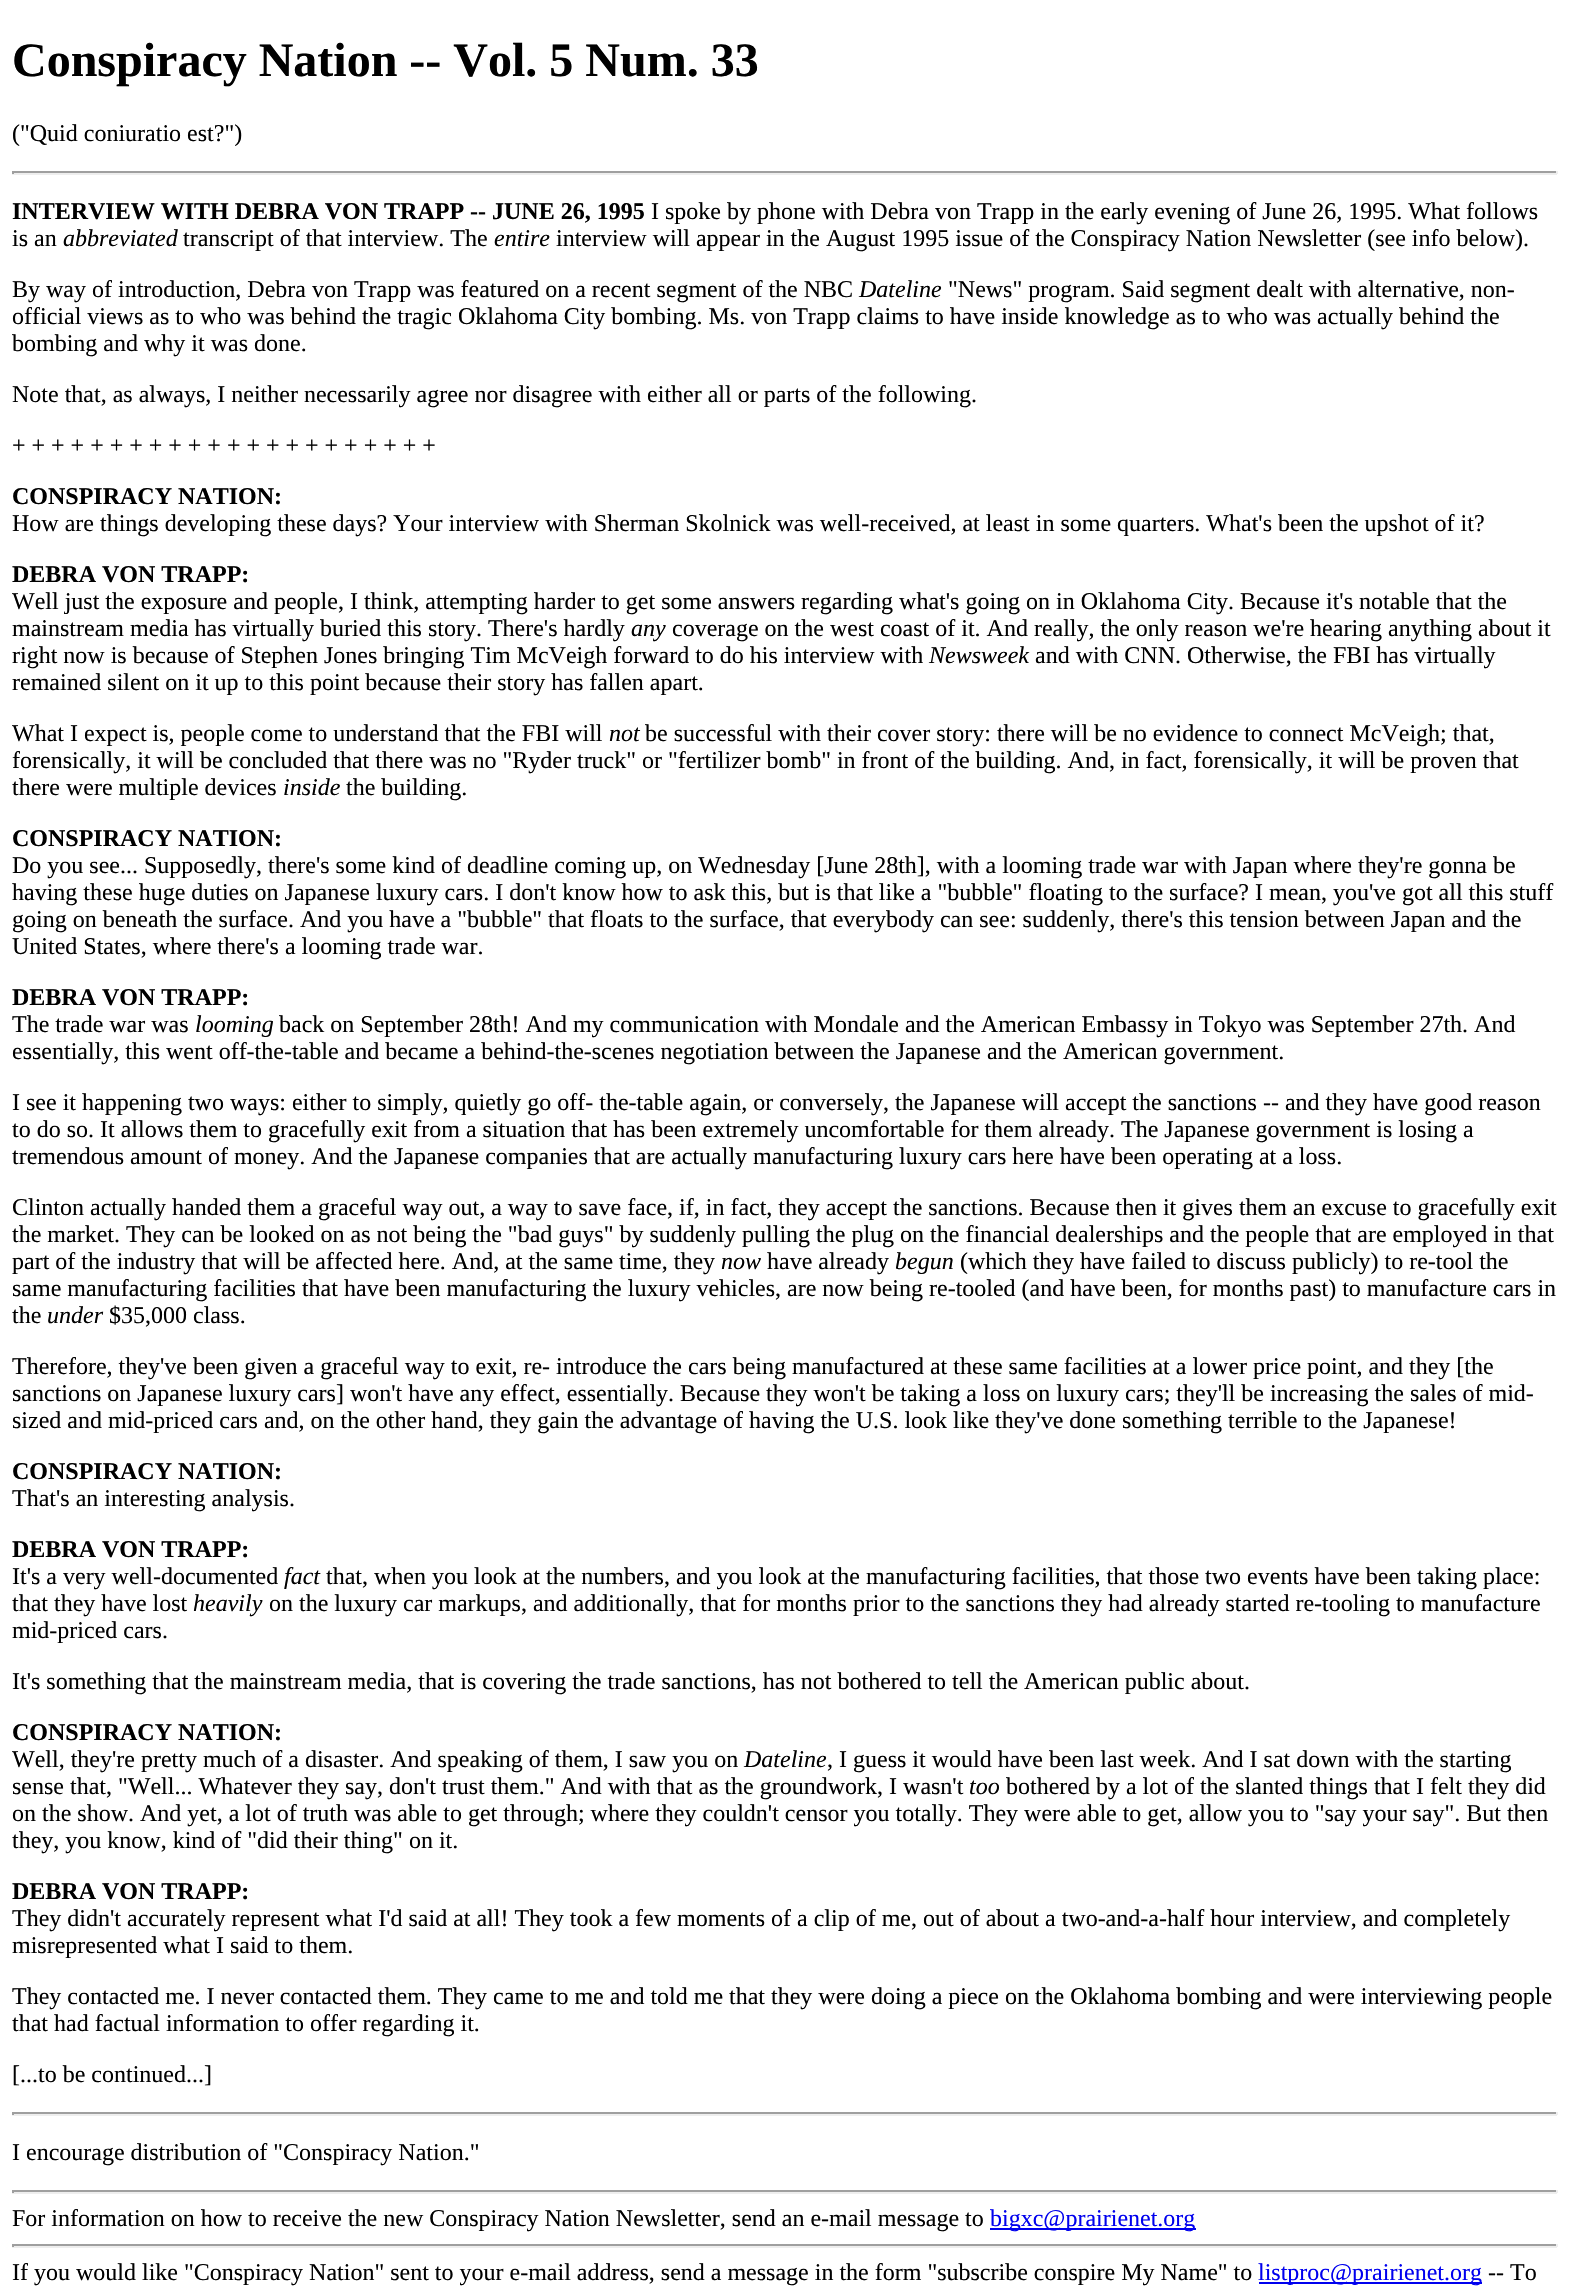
void draw(SkCanvas* canvas) {
  SkPaint paint;
  paint.setAntiAlias(true);
  auto face = [&](const char* family, int weight, float size, bool italic = false) {
    SkFontStyle style(weight, SkFontStyle::kNormal_Width,
      italic ? SkFontStyle::kItalic_Slant : SkFontStyle::kUpright_Slant);
    SkFont result(fontMgr->matchFamilyStyle(family, style), size);
    result.setSubpixel(true);
    return result;
  };
  canvas->clear(0xffffffff);
  {
    const struct { float x, y, w, h; SkColor color; } items[] = {
      {12, 171, 1545, 2, 0xff9f9f9f},
      {1556, 171, 2, 3, 0xffeeeeee},
      {12, 173, 1545, 2, 0xffeeeeee},
      {12, 171, 2, 3, 0xff9f9f9f},
      {12, 2112, 1545, 2, 0xff9f9f9f},
      {1556, 2112, 2, 3, 0xffeeeeee},
      {12, 2114, 1545, 2, 0xffeeeeee},
      {12, 2112, 2, 3, 0xff9f9f9f},
      {12, 2190, 1545, 2, 0xff9f9f9f},
      {1556, 2190, 2, 3, 0xffeeeeee},
      {12, 2192, 1545, 2, 0xffeeeeee},
      {12, 2190, 2, 3, 0xff9f9f9f},
      {990, 2228, 206, 2, 0xff0000ee},
      {12, 2244, 1545, 2, 0xff9f9f9f},
      {1556, 2244, 2, 3, 0xffeeeeee},
      {12, 2246, 1545, 2, 0xffeeeeee},
      {12, 2244, 2, 3, 0xff9f9f9f},
      {1259, 2282, 223, 2, 0xff0000ee},
    };
    for (auto [x, y, w, h, color] : items) {
      paint.setColor(color);
      canvas->drawRect(SkRect::MakeXYWH(x, y, w, h), paint);
    }
  }
  auto f0 = face("Liberation Serif", 700, 48);
  paint.setColor(0xff000000);
  canvas->drawString("Conspiracy Nation -- Vol. 5 Num. 33", 12, 76, f0, paint);
  auto f1 = face("Liberation Serif", 400, 24);
  canvas->drawString("(\"Quid coniuratio est?\")", 12, 141, f1, paint);
  auto f2 = face("Liberation Serif", 700, 24);
  canvas->drawString("INTERVIEW WITH DEBRA VON TRAPP -- JUNE 26, 1995", 12, 219, f2, paint);
  canvas->drawString("I spoke by phone with Debra von Trapp in the early evening of June 26, 1995. What follows", 651, 219, f1, paint);
  canvas->drawString("is an", 12, 246, f1, paint);
  auto f3 = face("Liberation Serif", 400, 24, true);
  canvas->drawString("abbreviated", 63, 246, f3, paint);
  canvas->drawString("transcript of that interview. The", 183, 246, f1, paint);
  canvas->drawString("entire", 494, 246, f3, paint);
  canvas->drawString("interview will appear in the August 1995 issue of the Conspiracy Nation Newsletter (see info below).", 556, 246, f1, paint);
  canvas->drawString("By way of introduction, Debra von Trapp was featured on a recent segment of the NBC", 12, 297, f1, paint);
  canvas->drawString("Dateline", 859, 297, f3, paint);
  {
    const struct { const char* s; float x, y; } items[] = {
      {"\"News\" program. Said segment dealt with alternative, non-", 948, 297},
      {"official views as to who was behind the tragic Oklahoma City bombing. Ms. von Trapp claims to have inside knowledge as to who was actually behind the", 12, 324},
      {"bombing and why it was done.", 12, 351},
      {"Note that, as always, I neither necessarily agree nor disagree with either all or parts of the following.", 12, 402},
      {"+ + + + + + + + + + + + + + + + + + + + + +", 12, 453},
    };
    for (auto [s, x, y] : items) {
      canvas->drawString(s, x, y, f1, paint);
    }
  }
  canvas->drawString("CONSPIRACY NATION:", 12, 504, f2, paint);
  canvas->drawString("How are things developing these days? Your interview with Sherman Skolnick was well-received, at least in some quarters. What's been the upshot of it?", 12, 531, f1, paint);
  canvas->drawString("DEBRA VON TRAPP:", 12, 582, f2, paint);
  canvas->drawString("Well just the exposure and people, I think, attempting harder to get some answers regarding what's going on in Oklahoma City. Because it's notable that the", 12, 609, f1, paint);
  canvas->drawString("mainstream media has virtually buried this story. There's hardly", 12, 636, f1, paint);
  canvas->drawString("any", 631, 636, f3, paint);
  canvas->drawString("coverage on the west coast of it. And really, the only reason we're hearing anything about it", 672, 636, f1, paint);
  canvas->drawString("right now is because of Stephen Jones bringing Tim McVeigh forward to do his interview with", 12, 663, f1, paint);
  canvas->drawString("Newsweek", 929, 663, f3, paint);
  {
    const struct { const char* s; float x, y; } items[] = {
      {"and with CNN. Otherwise, the FBI has virtually", 1035, 663},
      {"remained silent on it up to this point because their story has fallen apart.", 12, 690},
      {"What I expect is, people come to understand that the FBI will", 12, 741},
    };
    for (auto [s, x, y] : items) {
      canvas->drawString(s, x, y, f1, paint);
    }
  }
  canvas->drawString("not", 609, 741, f3, paint);
  {
    const struct { const char* s; float x, y; } items[] = {
      {"be successful with their cover story: there will be no evidence to connect McVeigh; that,", 645, 741},
      {"forensically, it will be concluded that there was no \"Ryder truck\" or \"fertilizer bomb\" in front of the building. And, in fact, forensically, it will be proven that", 12, 768},
      {"there were multiple devices", 12, 795},
    };
    for (auto [s, x, y] : items) {
      canvas->drawString(s, x, y, f1, paint);
    }
  }
  canvas->drawString("inside", 283, 795, f3, paint);
  canvas->drawString("the building.", 346, 795, f1, paint);
  canvas->drawString("CONSPIRACY NATION:", 12, 846, f2, paint);
  {
    const struct { const char* s; float x, y; } items[] = {
      {"Do you see... Supposedly, there's some kind of deadline coming up, on Wednesday [June 28th], with a looming trade war with Japan where they're gonna be", 12, 873},
      {"having these huge duties on Japanese luxury cars. I don't know how to ask this, but is that like a \"bubble\" floating to the surface? I mean, you've got all this stuff", 12, 900},
      {"going on beneath the surface. And you have a \"bubble\" that floats to the surface, that everybody can see: suddenly, there's this tension between Japan and the", 12, 927},
      {"United States, where there's a looming trade war.", 12, 954},
    };
    for (auto [s, x, y] : items) {
      canvas->drawString(s, x, y, f1, paint);
    }
  }
  canvas->drawString("DEBRA VON TRAPP:", 12, 1005, f2, paint);
  canvas->drawString("The trade war was", 12, 1032, f1, paint);
  canvas->drawString("looming", 195, 1032, f3, paint);
  {
    const struct { const char* s; float x, y; } items[] = {
      {"back on September 28th! And my communication with Mondale and the American Embassy in Tokyo was September 27th. And", 279, 1032},
      {"essentially, this went off-the-table and became a behind-the-scenes negotiation between the Japanese and the American government.", 12, 1059},
      {"I see it happening two ways: either to simply, quietly go off- the-table again, or conversely, the Japanese will accept the sanctions -- and they have good reason", 12, 1110},
      {"to do so. It allows them to gracefully exit from a situation that has been extremely uncomfortable for them already. The Japanese government is losing a", 12, 1137},
      {"tremendous amount of money. And the Japanese companies that are actually manufacturing luxury cars here have been operating at a loss.", 12, 1164},
      {"Clinton actually handed them a graceful way out, a way to save face, if, in fact, they accept the sanctions. Because then it gives them an excuse to gracefully exit", 12, 1215},
      {"the market. They can be looked on as not being the \"bad guys\" by suddenly pulling the plug on the financial dealerships and the people that are employed in that", 12, 1242},
      {"part of the industry that will be affected here. And, at the same time, they", 12, 1269},
    };
    for (auto [s, x, y] : items) {
      canvas->drawString(s, x, y, f1, paint);
    }
  }
  canvas->drawString("now", 721, 1269, f3, paint);
  canvas->drawString("have already", 767, 1269, f1, paint);
  canvas->drawString("begun", 895, 1269, f3, paint);
  {
    const struct { const char* s; float x, y; } items[] = {
      {"(which they have failed to discuss publicly) to re-tool the", 960, 1269},
      {"same manufacturing facilities that have been manufacturing the luxury vehicles, are now being re-tooled (and have been, for months past) to manufacture cars in", 12, 1296},
      {"the", 12, 1323},
    };
    for (auto [s, x, y] : items) {
      canvas->drawString(s, x, y, f1, paint);
    }
  }
  canvas->drawString("under", 47, 1323, f3, paint);
  {
    const struct { const char* s; float x, y; } items[] = {
      {"$35,000 class.", 109, 1323},
      {"Therefore, they've been given a graceful way to exit, re- introduce the cars being manufactured at these same facilities at a lower price point, and they [the", 12, 1374},
      {"sanctions on Japanese luxury cars] won't have any effect, essentially. Because they won't be taking a loss on luxury cars; they'll be increasing the sales of mid-", 12, 1401},
      {"sized and mid-priced cars and, on the other hand, they gain the advantage of having the U.S. look like they've done something terrible to the Japanese!", 12, 1428},
    };
    for (auto [s, x, y] : items) {
      canvas->drawString(s, x, y, f1, paint);
    }
  }
  canvas->drawString("CONSPIRACY NATION:", 12, 1479, f2, paint);
  canvas->drawString("That's an interesting analysis.", 12, 1506, f1, paint);
  canvas->drawString("DEBRA VON TRAPP:", 12, 1557, f2, paint);
  canvas->drawString("It's a very well-documented", 12, 1584, f1, paint);
  canvas->drawString("fact", 284, 1584, f3, paint);
  canvas->drawString("that, when you look at the numbers, and you look at the manufacturing facilities, that those two events have been taking place:", 326, 1584, f1, paint);
  canvas->drawString("that they have lost", 12, 1611, f1, paint);
  canvas->drawString("heavily", 193, 1611, f3, paint);
  {
    const struct { const char* s; float x, y; } items[] = {
      {"on the luxury car markups, and additionally, that for months prior to the sanctions they had already started re-tooling to manufacture", 269, 1611},
      {"mid-priced cars.", 12, 1638},
      {"It's something that the mainstream media, that is covering the trade sanctions, has not bothered to tell the American public about.", 12, 1689},
    };
    for (auto [s, x, y] : items) {
      canvas->drawString(s, x, y, f1, paint);
    }
  }
  canvas->drawString("CONSPIRACY NATION:", 12, 1740, f2, paint);
  canvas->drawString("Well, they're pretty much of a disaster. And speaking of them, I saw you on", 12, 1767, f1, paint);
  canvas->drawString("Dateline", 744, 1767, f3, paint);
  canvas->drawString(", I guess it would have been last week. And I sat down with the starting", 827, 1767, f1, paint);
  canvas->drawString("sense that, \"Well... Whatever they say, don't trust them.\" And with that as the groundwork, I wasn't", 12, 1794, f1, paint);
  canvas->drawString("too", 969, 1794, f3, paint);
  {
    const struct { const char* s; float x, y; } items[] = {
      {"bothered by a lot of the slanted things that I felt they did", 1006, 1794},
      {"on the show. And yet, a lot of truth was able to get through; where they couldn't censor you totally. They were able to get, allow you to \"say your say\". But then", 12, 1821},
      {"they, you know, kind of \"did their thing\" on it.", 12, 1848},
    };
    for (auto [s, x, y] : items) {
      canvas->drawString(s, x, y, f1, paint);
    }
  }
  canvas->drawString("DEBRA VON TRAPP:", 12, 1899, f2, paint);
  {
    const struct { const char* s; float x, y; } items[] = {
      {"They didn't accurately represent what I'd said at all! They took a few moments of a clip of me, out of about a two-and-a-half hour interview, and completely", 12, 1926},
      {"misrepresented what I said to them.", 12, 1953},
      {"They contacted me. I never contacted them. They came to me and told me that they were doing a piece on the Oklahoma bombing and were interviewing people", 12, 2004},
      {"that had factual information to offer regarding it.", 12, 2031},
      {"[...to be continued...]", 12, 2082},
      {"I encourage distribution of \"Conspiracy Nation.\"", 12, 2160},
      {"For information on how to receive the new Conspiracy Nation Newsletter, send an e-mail message to", 12, 2226},
    };
    for (auto [s, x, y] : items) {
      canvas->drawString(s, x, y, f1, paint);
    }
  }
  paint.setColor(0xff0000ee);
  canvas->drawString("bigxc@prairienet.org", 990, 2226, f1, paint);
  paint.setColor(0xff000000);
  canvas->drawString("If you would like \"Conspiracy Nation\" sent to your e-mail address, send a message in the form \"subscribe conspire My Name\" to", 12, 2280, f1, paint);
  paint.setColor(0xff0000ee);
  canvas->drawString("listproc@prairienet.org", 1258, 2280, f1, paint);
  paint.setColor(0xff000000);
  canvas->drawString("-- To", 1488, 2280, f1, paint);
}
